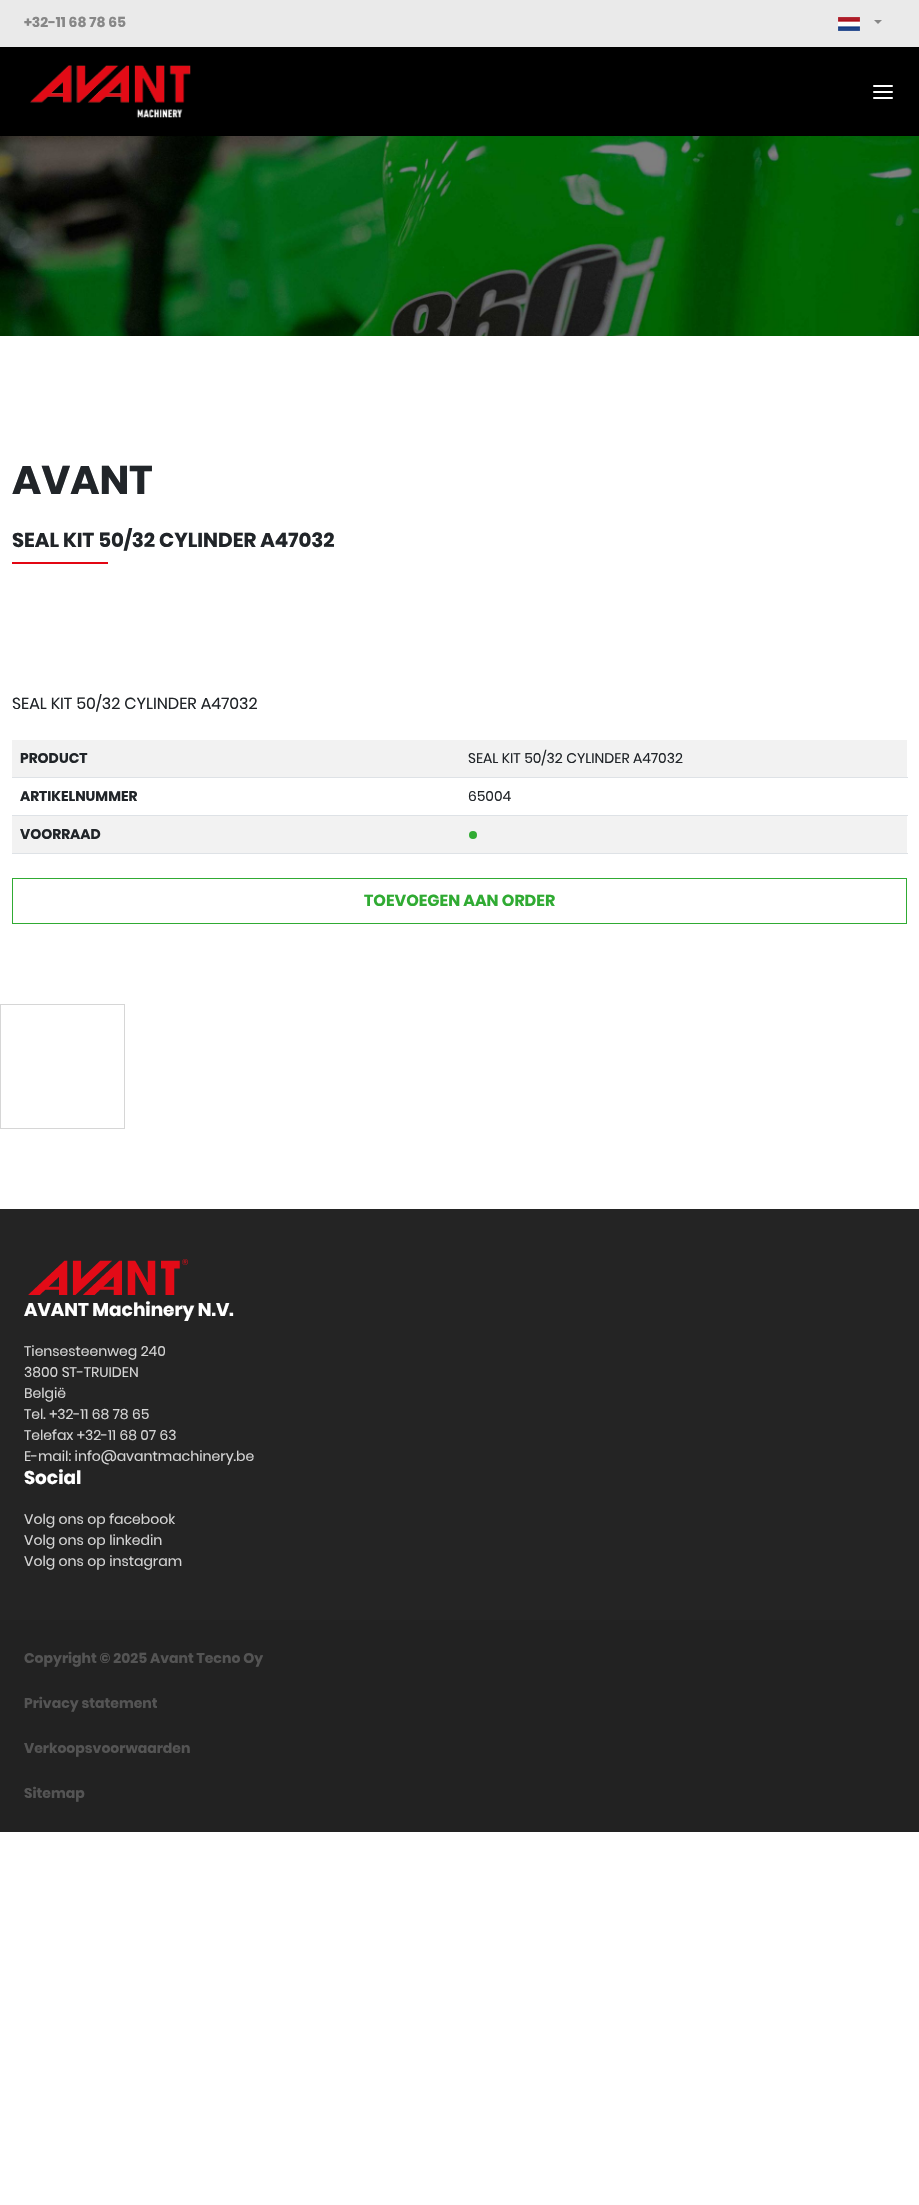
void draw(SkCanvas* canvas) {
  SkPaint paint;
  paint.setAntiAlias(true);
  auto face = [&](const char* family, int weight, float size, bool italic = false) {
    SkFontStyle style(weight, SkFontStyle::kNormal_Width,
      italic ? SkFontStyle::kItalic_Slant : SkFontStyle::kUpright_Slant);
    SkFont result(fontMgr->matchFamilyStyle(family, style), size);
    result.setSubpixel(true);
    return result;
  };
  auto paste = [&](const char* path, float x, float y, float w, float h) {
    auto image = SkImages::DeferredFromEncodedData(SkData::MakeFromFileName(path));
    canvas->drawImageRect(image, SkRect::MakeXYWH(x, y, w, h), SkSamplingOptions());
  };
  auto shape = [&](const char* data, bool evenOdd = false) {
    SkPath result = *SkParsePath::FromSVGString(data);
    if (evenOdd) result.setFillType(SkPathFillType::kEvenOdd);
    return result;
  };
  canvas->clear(0xffffffff);
  paint.setColor(0xffeaeaea);
  canvas->drawRect(SkRect::MakeXYWH(0, 0, 919, 47), paint);
  paste("img/1.png", 838, 17, 22, 14);
  paint.setColor(0xff878787);
  canvas->drawPath(shape("M874 20H882L878 24Z"), paint);
  paint.setColor(0xff000000);
  canvas->drawRect(SkRect::MakeXYWH(0, 47, 919, 89), paint);
  paste("img/2.png", 30, 65, 161, 53);
  paint.setStroke(true);
  paint.setStrokeWidth(2);
  paint.setStrokeCap(SkPaint::kRound_Cap);
  paint.setStrokeJoin(SkPaint::kRound_Join);
  paint.setColor(0xffffffff);
  canvas->drawPath(shape("M874 92H892M874 86H892M874 98H892"), paint);
  paste("img/3.png", 0, 136, 919, 200);
  paint.setStroke(false);
  {
    const struct { float x, y, w, h; SkColor color; } items[] = {
      {12, 562, 96, 2, 0xffe30613},
      {12, 740, 895, 37, 0xfff2f2f2},
      {12, 777, 896, 1, 0xffdee2e6},
      {12, 815, 896, 1, 0xffdee2e6},
      {12, 816, 895, 37, 0xfff2f2f2},
      {12, 853, 896, 1, 0xffdee2e6},
    };
    for (auto [x, y, w, h, color] : items) {
      paint.setColor(color);
      canvas->drawRect(SkRect::MakeXYWH(x, y, w, h), paint);
    }
  }
  paint.setColor(0xff30ab33);
  canvas->drawCircle(473, 835, 4, paint);
  paint.setStroke(true);
  paint.setStrokeWidth(1);
  paint.setStrokeCap(SkPaint::kButt_Cap);
  paint.setStrokeJoin(SkPaint::kMiter_Join);
  canvas->drawRect(SkRect::MakeXYWH(12.5f, 878.5f, 894, 45), paint);
  paint.setColor(0xffd6d6d6);
  canvas->drawRect(SkRect::MakeXYWH(0.5f, 1004.5f, 124, 124), paint);
  paint.setStroke(false);
  paint.setColor(0xff242424);
  canvas->drawRect(SkRect::MakeXYWH(0, 1209, 919, 411), paint);
  paste("img/4.png", 28, 1259, 160, 36);
  paint.setColor(0xff222222);
  canvas->drawRect(SkRect::MakeXYWH(0, 1620, 919, 212), paint);
  auto f0 = face("Poppins", 700, 14);
  paint.setColor(0xff878787);
  canvas->drawString("+32-11 68 78 65", 24, 27, f0, paint);
  auto f1 = face("Poppins", 700, 40);
  paint.setColor(0xff212529);
  canvas->drawString("AVANT", 12, 494, f1, paint);
  auto f2 = face("Poppins", 700, 20);
  canvas->drawString("SEAL KIT 50/32 CYLINDER A47032", 12, 547, f2, paint);
  auto f3 = face("Poppins", 400, 16);
  canvas->drawString("SEAL KIT 50/32 CYLINDER A47032", 12, 709, f3, paint);
  canvas->drawString("PRODUCT", 20, 763, f0, paint);
  auto f4 = face("Poppins", 400, 14);
  canvas->drawString("SEAL KIT 50/32 CYLINDER A47032", 468, 763, f4, paint);
  canvas->drawString("ARTIKELNUMMER", 20, 801, f0, paint);
  canvas->drawString("65004", 468, 801, f4, paint);
  canvas->drawString("VOORRAAD", 20, 839, f0, paint);
  auto f5 = face("Poppins", 700, 16);
  paint.setColor(0xff30ab33);
  canvas->drawString("TOEVOEGEN AAN ORDER", 364, 906, f5, paint);
  auto f6 = face("Poppins", 700, 18.4f);
  paint.setColor(0xffffffff);
  canvas->drawString("AVANT Machinery N.V.", 24, 1316, f6, paint);
  paint.setColor(0xffd4d4d4);
  {
    const struct { const char* s; float x, y; } items[] = {
      {"Tiensesteenweg 240", 24, 1356},
      {"3800 ST-TRUIDEN", 24, 1377},
      {"België", 24, 1398},
      {"Tel. +32-11 68 78 65", 24, 1419},
      {"Telefax +32-11 68 07 63", 24, 1440},
      {"E-mail: info@avantmachinery.be", 24, 1461},
    };
    for (auto [s, x, y] : items) {
      canvas->drawString(s, x, y, f4, paint);
    }
  }
  paint.setColor(0xffffffff);
  canvas->drawString("Social", 24, 1484, f6, paint);
  paint.setColor(0xffd4d4d4);
  {
    const struct { const char* s; float x, y; } items[] = {
      {"Volg ons op facebook", 24, 1524},
      {"Volg ons op linkedin", 24, 1545},
      {"Volg ons op instagram", 24, 1566},
    };
    for (auto [s, x, y] : items) {
      canvas->drawString(s, x, y, f4, paint);
    }
  }
  paint.setColor(0xff545454);
  {
    const struct { const char* s; float x, y; } items[] = {
      {"Copyright © 2025 Avant Tecno Oy", 24, 1663},
      {"Privacy statement", 24, 1708},
      {"Verkoopsvoorwaarden", 24, 1753},
      {"Sitemap", 24, 1798},
    };
    for (auto [s, x, y] : items) {
      canvas->drawString(s, x, y, f0, paint);
    }
  }
}
